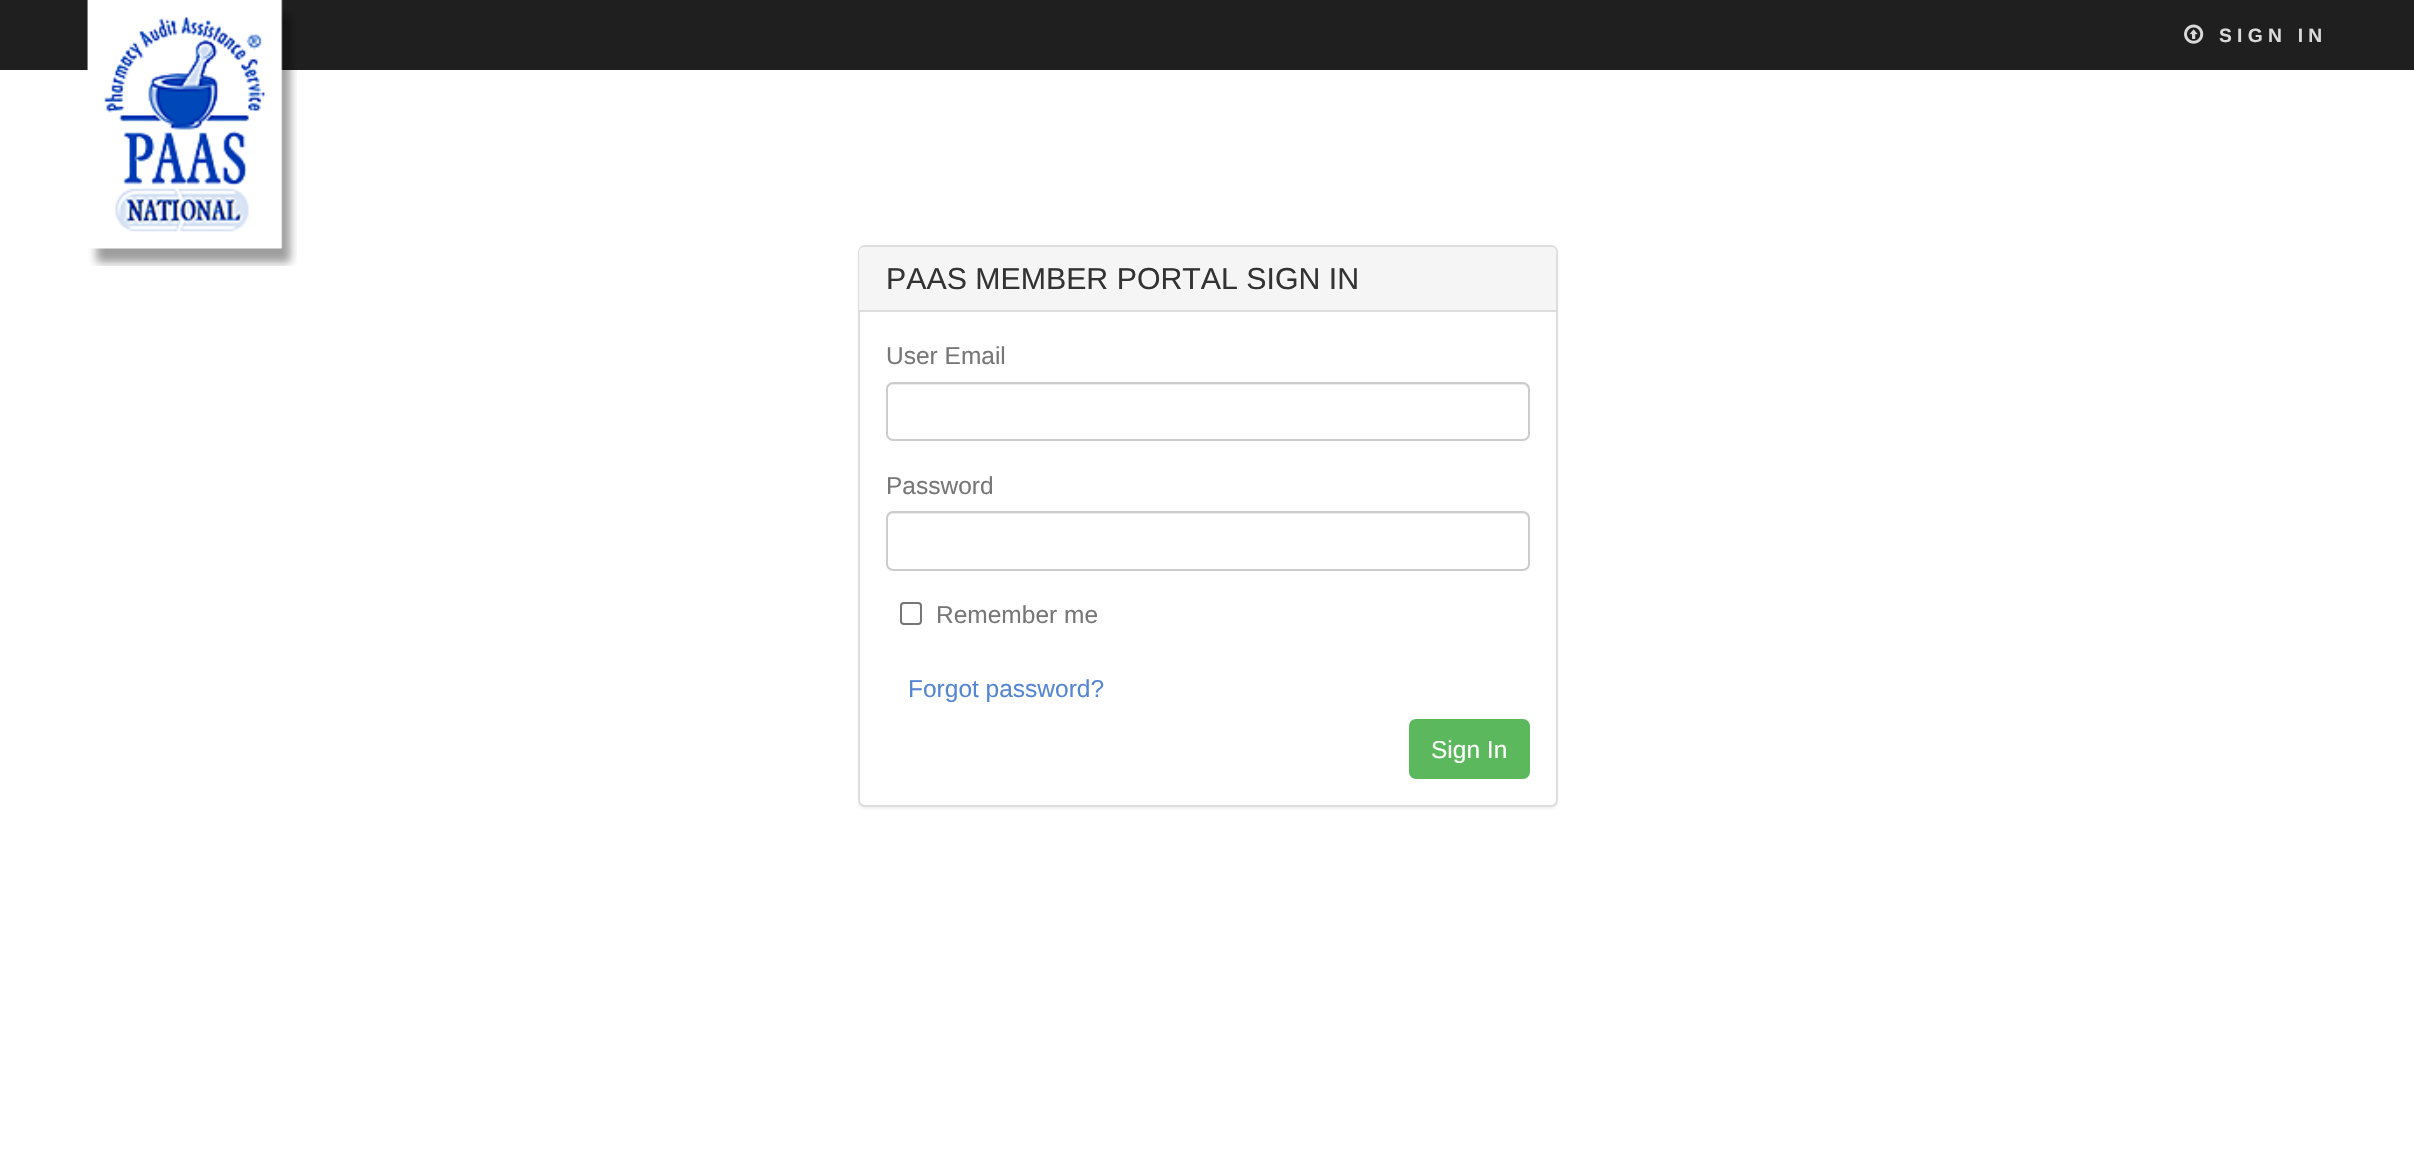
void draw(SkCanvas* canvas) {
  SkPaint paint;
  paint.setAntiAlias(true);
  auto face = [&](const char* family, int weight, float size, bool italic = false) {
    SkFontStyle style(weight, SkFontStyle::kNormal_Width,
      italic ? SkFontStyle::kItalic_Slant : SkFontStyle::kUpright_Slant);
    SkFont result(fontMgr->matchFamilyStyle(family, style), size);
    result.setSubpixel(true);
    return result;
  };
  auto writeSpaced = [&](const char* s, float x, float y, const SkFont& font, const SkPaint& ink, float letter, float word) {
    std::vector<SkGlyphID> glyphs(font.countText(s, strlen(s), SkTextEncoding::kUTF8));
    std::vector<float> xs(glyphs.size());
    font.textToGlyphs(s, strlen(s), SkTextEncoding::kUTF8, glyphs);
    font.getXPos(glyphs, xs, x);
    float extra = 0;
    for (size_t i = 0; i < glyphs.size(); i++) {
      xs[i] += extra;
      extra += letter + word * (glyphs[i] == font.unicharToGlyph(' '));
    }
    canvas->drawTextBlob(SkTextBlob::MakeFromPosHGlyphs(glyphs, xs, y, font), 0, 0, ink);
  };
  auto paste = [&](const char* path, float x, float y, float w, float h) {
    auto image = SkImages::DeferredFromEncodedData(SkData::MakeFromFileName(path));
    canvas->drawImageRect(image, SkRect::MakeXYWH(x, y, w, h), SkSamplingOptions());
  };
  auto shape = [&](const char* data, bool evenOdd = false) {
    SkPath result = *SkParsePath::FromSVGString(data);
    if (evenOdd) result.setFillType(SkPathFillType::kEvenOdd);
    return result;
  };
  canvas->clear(0xffffffff);
  paint.setColor(0xff1f1f1f);
  canvas->drawRect(SkRect::MakeXYWH(0, 0, 2414, 70), paint);
  paste("img/1.png", 87, 0, 210, 266);
  paste("img/2.png", 2184, 24, 20, 20);
  paint.setColor(0x0d000000);
  paint.setMaskFilter(SkMaskFilter::MakeBlur(kNormal_SkBlurStyle, 1));
  canvas->drawRoundRect(SkRect::MakeXYWH(858, 247, 700, 562), 7, 7, paint);
  paint.setMaskFilter(nullptr);
  paint.setColor(0xffffffff);
  canvas->drawRoundRect(SkRect::MakeXYWH(859, 246, 698, 560), 6, 6, paint);
  paint.setStroke(true);
  paint.setStrokeWidth(2);
  paint.setColor(0xffdddddd);
  canvas->drawRoundRect(SkRect::MakeXYWH(859, 246, 698, 560), 6, 6, paint);
  paint.setStroke(false);
  paint.setColor(0xfff5f5f5);
  canvas->drawPath(shape("M864 247H1551C1554 247 1556 249 1556 252V312H859V252C859 249 861 247 864 247Z"), paint);
  paint.setColor(0xffdddddd);
  canvas->drawRect(SkRect::MakeXYWH(859, 310, 697, 2), paint);
  paint.setColor(0xffececec);
  canvas->drawPath(shape("M892 385H1522C1525 385 1528 387 1528 390V388C1528 385 1526 383 1523 383H892C889 383 887 385 887 388V390C887 387 890 385 892 385Z"), paint);
  paint.setStroke(true);
  paint.setColor(0xffcccccc);
  canvas->drawRoundRect(SkRect::MakeXYWH(887, 383, 642, 57), 6, 6, paint);
  paint.setStroke(false);
  paint.setColor(0xffececec);
  canvas->drawPath(shape("M892 514H1522C1525 514 1528 517 1528 520V518C1528 515 1526 513 1523 513H892C889 513 887 515 887 518V520C887 517 890 514 892 514Z"), paint);
  paint.setStroke(true);
  paint.setColor(0xffcccccc);
  canvas->drawRoundRect(SkRect::MakeXYWH(887, 512, 642, 58), 6, 6, paint);
  paint.setColor(0xff767676);
  canvas->drawRoundRect(SkRect::MakeXYWH(901, 603, 20, 21), 3, 3, paint);
  paint.setStroke(false);
  paint.setColor(0xff5cb85c);
  canvas->drawRoundRect(SkRect::MakeXYWH(1410, 720, 119, 58), 6, 6, paint);
  paint.setStroke(true);
  canvas->drawRoundRect(SkRect::MakeXYWH(1410, 720, 119, 58), 6, 6, paint);
  auto f0 = face("Liberation Sans", 700, 19.25f);
  paint.setStroke(false);
  paint.setColor(0xffd9d9d9);
  writeSpaced("SIGN IN", 2219, 42, f0, paint, 5.25f, 0);
  auto f1 = face("Liberation Sans", 400, 30.3f);
  paint.setColor(0xff333333);
  canvas->drawString("PAAS MEMBER PORTAL SIGN IN", 886, 289, f1, paint);
  auto f2 = face("Liberation Sans", 400, 24.5f);
  paint.setColor(0xff777777);
  {
    const struct { const char* s; float x, y; } items[] = {
      {"User Email", 886, 364},
      {"Password", 886, 494},
      {"Remember me", 936, 623},
    };
    for (auto [s, x, y] : items) {
      canvas->drawString(s, x, y, f2, paint);
    }
  }
  paint.setColor(0xff5685d1);
  canvas->drawString("Forgot password?", 908, 697, f2, paint);
  paint.setColor(0xffffffff);
  canvas->drawString("Sign In", 1431, 758, f2, paint);
}
